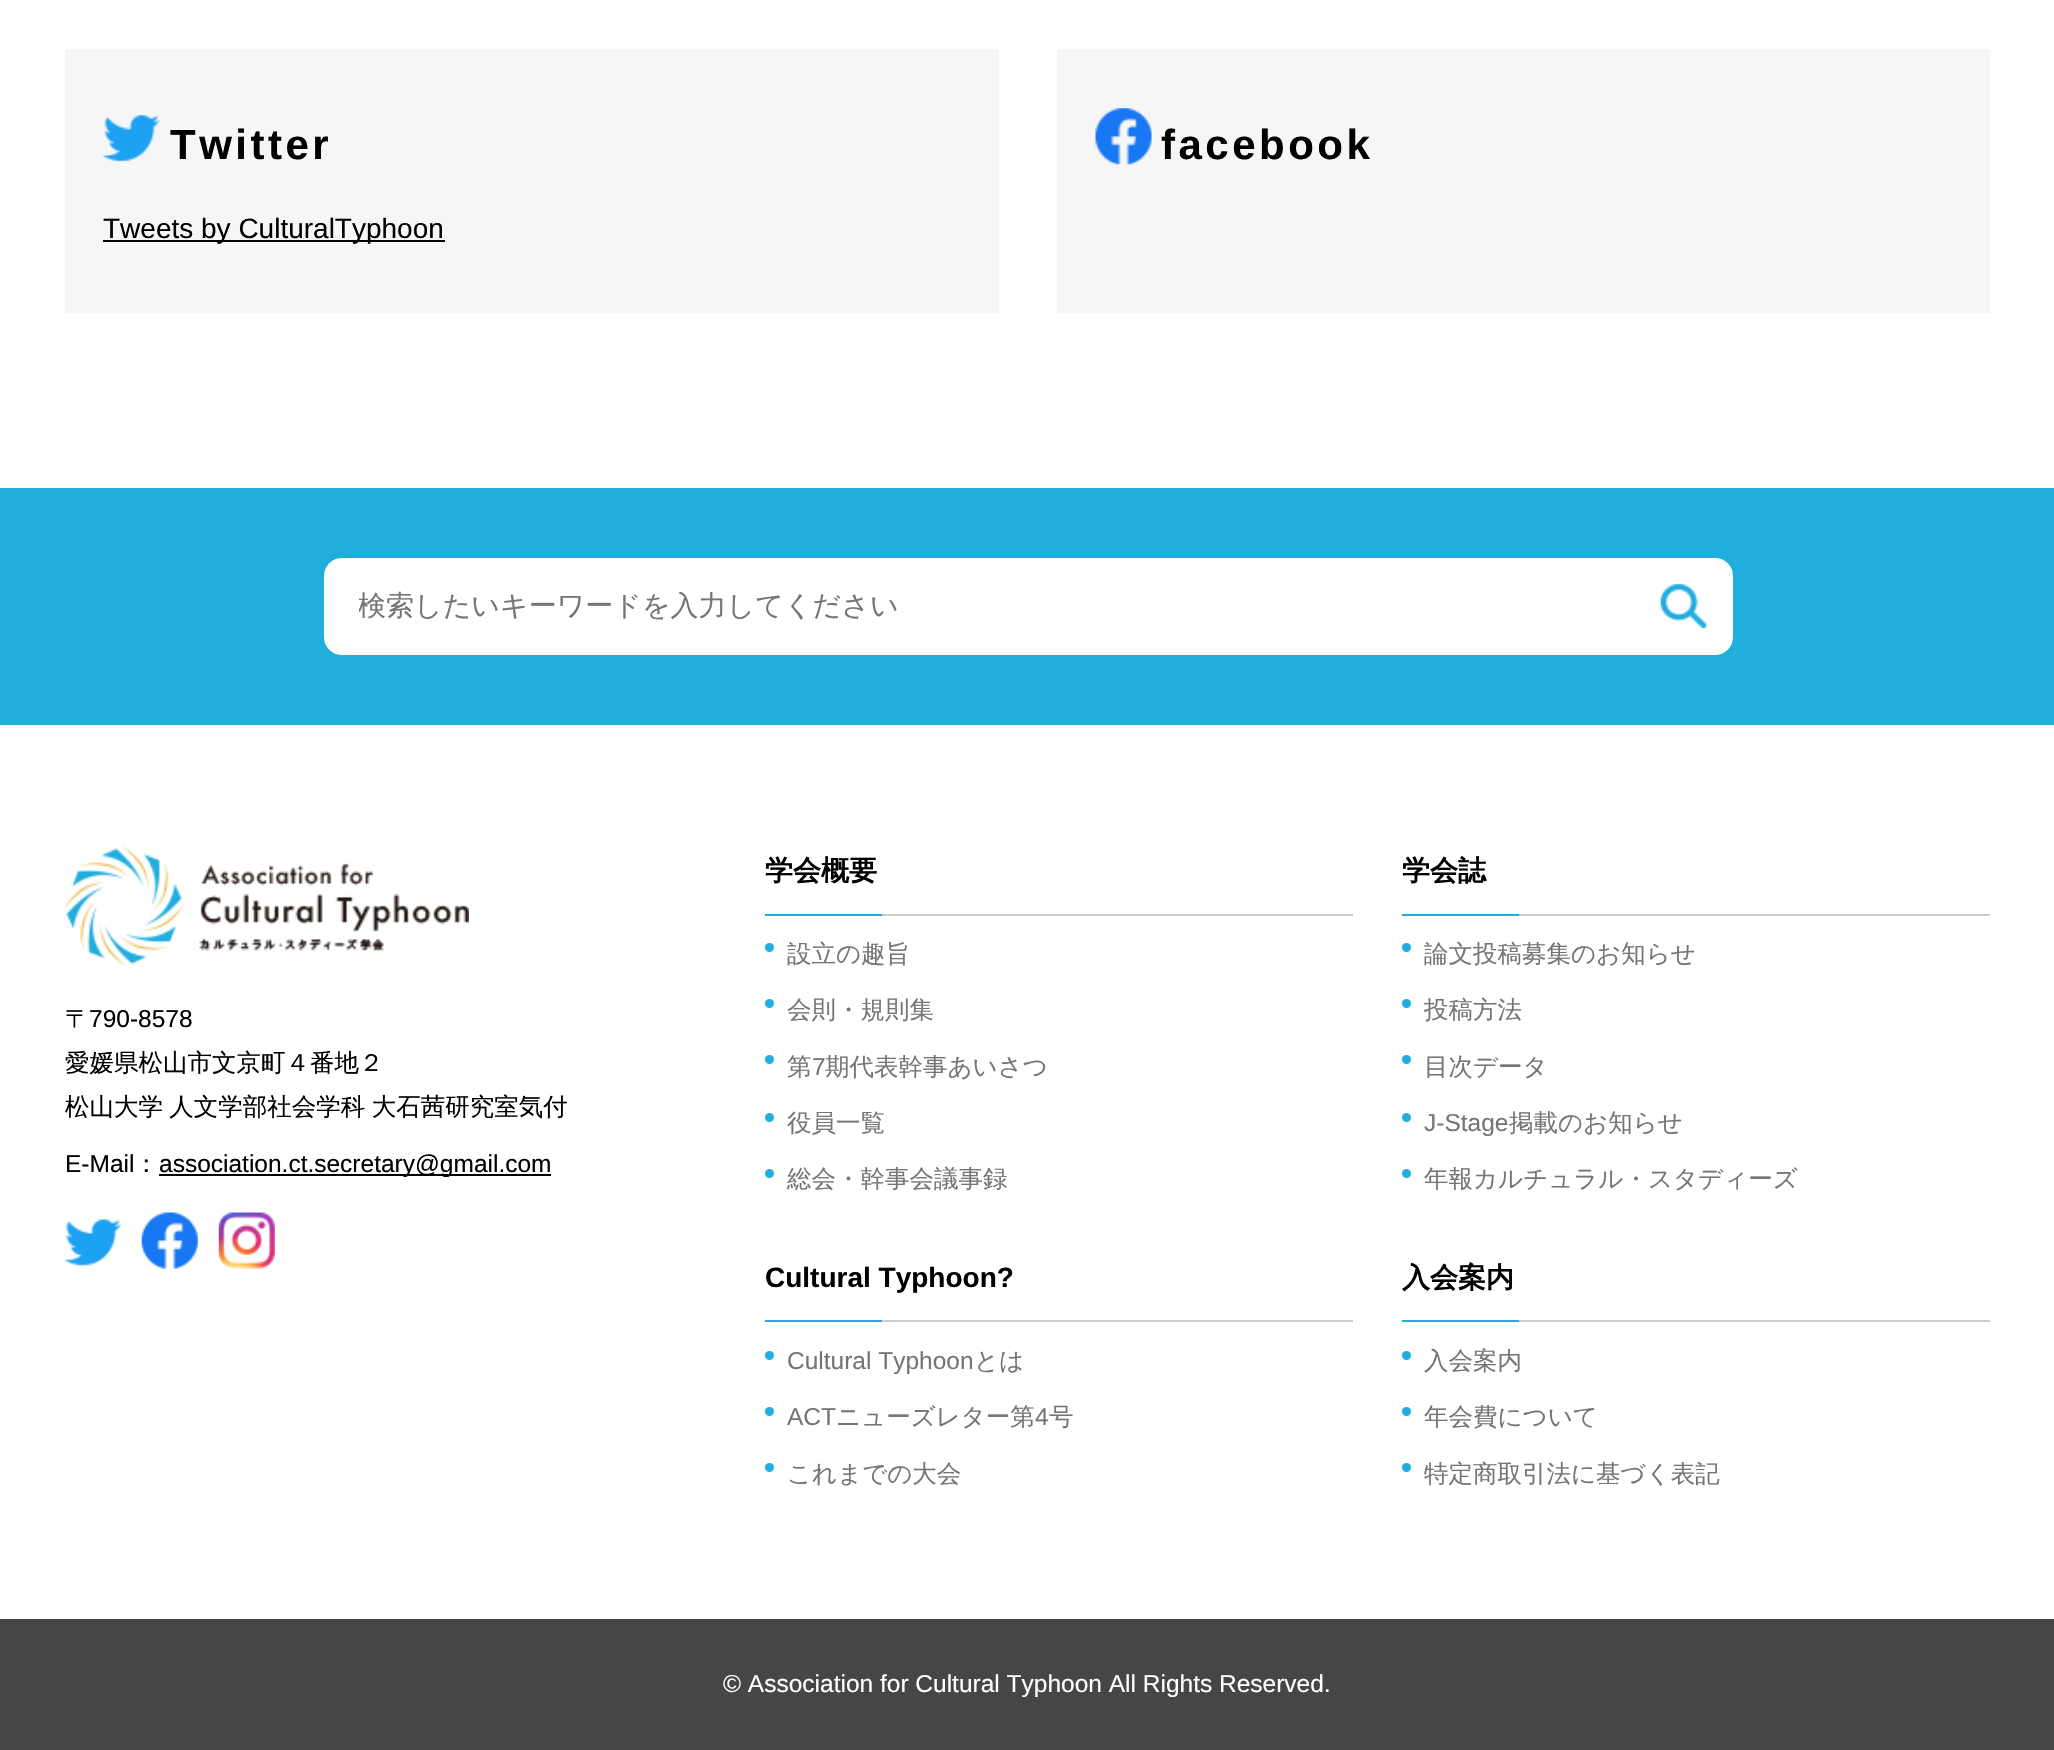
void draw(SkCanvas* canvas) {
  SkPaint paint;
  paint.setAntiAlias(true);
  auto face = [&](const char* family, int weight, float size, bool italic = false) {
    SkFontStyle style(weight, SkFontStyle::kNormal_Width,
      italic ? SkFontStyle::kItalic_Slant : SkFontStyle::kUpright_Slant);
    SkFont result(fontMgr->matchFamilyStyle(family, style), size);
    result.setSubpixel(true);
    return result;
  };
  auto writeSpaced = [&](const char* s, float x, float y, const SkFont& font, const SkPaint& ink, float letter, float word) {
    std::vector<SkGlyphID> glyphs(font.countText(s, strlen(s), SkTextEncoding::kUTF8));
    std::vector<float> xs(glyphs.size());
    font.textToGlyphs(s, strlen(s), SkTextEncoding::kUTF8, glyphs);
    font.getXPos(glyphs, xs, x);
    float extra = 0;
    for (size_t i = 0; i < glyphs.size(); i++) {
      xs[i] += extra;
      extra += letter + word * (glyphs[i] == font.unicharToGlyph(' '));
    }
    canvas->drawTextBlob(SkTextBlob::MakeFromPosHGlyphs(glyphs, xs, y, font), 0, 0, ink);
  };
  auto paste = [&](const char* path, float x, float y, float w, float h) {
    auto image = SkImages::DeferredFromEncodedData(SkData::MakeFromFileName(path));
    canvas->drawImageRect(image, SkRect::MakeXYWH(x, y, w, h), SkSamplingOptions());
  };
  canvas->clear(0xffffffff);
  paint.setColor(0xfff6f6f6);
  canvas->drawRect(SkRect::MakeXYWH(65, 49, 934, 264), paint);
  paste("img/1.png", 103, 114, 57, 48);
  paint.setColor(0xff000000);
  canvas->drawRect(SkRect::MakeXYWH(103, 240, 342, 2), paint);
  paint.setColor(0xfff6f6f6);
  canvas->drawRect(SkRect::MakeXYWH(1057, 49, 933, 264), paint);
  paste("img/2.png", 1095, 108, 57, 57);
  paint.setColor(0xff21adde);
  canvas->drawRect(SkRect::MakeXYWH(0, 488, 2054, 237), paint);
  paint.setColor(0xffffffff);
  canvas->drawRoundRect(SkRect::MakeXYWH(324, 558, 1409, 97), 18, 18, paint);
  paste("img/3.png", 1660, 584, 47, 44);
  paste("img/4.png", 64, 846, 405, 120);
  paint.setColor(0xff000000);
  canvas->drawRect(SkRect::MakeXYWH(159, 1174, 392, 2), paint);
  paste("img/5.png", 64, 1219, 57, 47);
  paste("img/6.png", 141, 1212, 57, 57);
  paste("img/7.png", 218, 1212, 57, 57);
  paint.setColor(0xff21adde);
  canvas->drawRect(SkRect::MakeXYWH(765, 914, 117, 2), paint);
  paint.setColor(0xffcccccc);
  canvas->drawRect(SkRect::MakeXYWH(882, 914, 471, 2), paint);
  paint.setColor(0xff21adde);
  canvas->drawCircle(769.5f, 947.5f, 4.5f, paint);
  canvas->drawCircle(769.5f, 1003.5f, 4.5f, paint);
  canvas->drawCircle(769.5f, 1059.5f, 4.5f, paint);
  canvas->drawCircle(769.5f, 1117.5f, 4.5f, paint);
  canvas->drawCircle(769.5f, 1173.5f, 4.5f, paint);
  canvas->drawRect(SkRect::MakeXYWH(1402, 914, 117, 2), paint);
  paint.setColor(0xffcccccc);
  canvas->drawRect(SkRect::MakeXYWH(1519, 914, 471, 2), paint);
  paint.setColor(0xff21adde);
  canvas->drawCircle(1406.5f, 947.5f, 4.5f, paint);
  canvas->drawCircle(1406.5f, 1003.5f, 4.5f, paint);
  canvas->drawCircle(1406.5f, 1059.5f, 4.5f, paint);
  canvas->drawCircle(1406.5f, 1117.5f, 4.5f, paint);
  canvas->drawCircle(1406.5f, 1173.5f, 4.5f, paint);
  canvas->drawRect(SkRect::MakeXYWH(765, 1320, 117, 2), paint);
  paint.setColor(0xffcccccc);
  canvas->drawRect(SkRect::MakeXYWH(882, 1320, 471, 2), paint);
  paint.setColor(0xff21adde);
  canvas->drawCircle(769.5f, 1355.5f, 4.5f, paint);
  canvas->drawCircle(769.5f, 1411.5f, 4.5f, paint);
  canvas->drawCircle(769.5f, 1467.5f, 4.5f, paint);
  canvas->drawRect(SkRect::MakeXYWH(1402, 1320, 117, 2), paint);
  paint.setColor(0xffcccccc);
  canvas->drawRect(SkRect::MakeXYWH(1519, 1320, 471, 2), paint);
  paint.setColor(0xff21adde);
  canvas->drawCircle(1406.5f, 1355.5f, 4.5f, paint);
  canvas->drawCircle(1406.5f, 1411.5f, 4.5f, paint);
  canvas->drawCircle(1406.5f, 1467.5f, 4.5f, paint);
  paint.setColor(0xff464646);
  canvas->drawRect(SkRect::MakeXYWH(0, 1619, 2054, 131), paint);
  auto f0 = face("Liberation Sans", 700, 42);
  paint.setColor(0xff000000);
  writeSpaced("Twitter", 170, 159, f0, paint, 3.5f, 0);
  auto f1 = face("Liberation Sans", 400, 28);
  canvas->drawString("Tweets by CulturalTyphoon", 103, 238, f1, paint);
  writeSpaced("facebook", 1161, 159, f0, paint, 3.5f, 0);
  canvas->save();
  canvas->clipRect(SkRect::MakeXYWH(359, 588, 1277, 37));
  auto f2 = face("WenQuanYi Zen Hei", 500, 28);
  paint.setColor(0xff757575);
  canvas->drawString("検索したいキーワードを入力してください", 358, 615, f2, paint);
  canvas->restore();
  auto f3 = face("WenQuanYi Zen Hei", 500, 24.5f);
  paint.setColor(0xff000000);
  canvas->drawString("〒", 65, 1027, f3, paint);
  auto f4 = face("Liberation Sans", 400, 24.5f);
  canvas->drawString("790-8578", 89, 1027, f4, paint);
  canvas->drawString("愛媛県松山市文京町４番地２", 65, 1071, f3, paint);
  writeSpaced("松山大学 人文学部社会学科 大石茜研究室気付", 65, 1115, f3, paint, 0, -1);
  canvas->drawString("E-Mail", 65, 1172, f4, paint);
  canvas->drawString("：", 134, 1172, f3, paint);
  canvas->drawString("association.ct.secretary@gmail.com", 159, 1172, f4, paint);
  auto f5 = face("WenQuanYi Zen Hei", 700, 28);
  canvas->drawString("学会概要", 765, 880, f5, paint);
  paint.setColor(0xff757575);
  {
    const struct { const char* s; float x, y; } items[] = {
      {"設立の趣旨", 787, 962},
      {"会則・規則集", 787, 1018},
      {"第", 787, 1075},
    };
    for (auto [s, x, y] : items) {
      canvas->drawString(s, x, y, f3, paint);
    }
  }
  canvas->drawString("7", 812, 1075, f4, paint);
  {
    const struct { const char* s; float x, y; } items[] = {
      {"期代表幹事あいさつ", 825, 1075},
      {"役員一覧", 787, 1131},
      {"総会・幹事会議事録", 787, 1187},
    };
    for (auto [s, x, y] : items) {
      canvas->drawString(s, x, y, f3, paint);
    }
  }
  paint.setColor(0xff000000);
  canvas->drawString("学会誌", 1402, 880, f5, paint);
  paint.setColor(0xff757575);
  {
    const struct { const char* s; float x, y; } items[] = {
      {"論文投稿募集のお知らせ", 1424, 962},
      {"投稿方法", 1424, 1018},
      {"目次データ", 1424, 1075},
    };
    for (auto [s, x, y] : items) {
      canvas->drawString(s, x, y, f3, paint);
    }
  }
  canvas->drawString("J-Stage", 1424, 1131, f4, paint);
  canvas->drawString("掲載のお知らせ", 1509, 1131, f3, paint);
  canvas->drawString("年報カルチュラル・スタディーズ", 1424, 1187, f3, paint);
  auto f6 = face("Liberation Sans", 700, 28);
  paint.setColor(0xff000000);
  canvas->drawString("Cultural Typhoon?", 765, 1287, f6, paint);
  paint.setColor(0xff757575);
  canvas->drawString("Cultural Typhoon", 787, 1369, f4, paint);
  canvas->drawString("とは", 974, 1369, f3, paint);
  canvas->drawString("ACT", 787, 1425, f4, paint);
  canvas->drawString("ニューズレター第", 836, 1425, f3, paint);
  canvas->drawString("4", 1035, 1425, f4, paint);
  canvas->drawString("号", 1049, 1425, f3, paint);
  canvas->drawString("これまでの大会", 787, 1482, f3, paint);
  paint.setColor(0xff000000);
  canvas->drawString("入会案内", 1402, 1287, f5, paint);
  paint.setColor(0xff757575);
  {
    const struct { const char* s; float x, y; } items[] = {
      {"入会案内", 1424, 1369},
      {"年会費について", 1424, 1425},
      {"特定商取引法に基づく表記", 1424, 1482},
    };
    for (auto [s, x, y] : items) {
      canvas->drawString(s, x, y, f3, paint);
    }
  }
  paint.setColor(0xffffffff);
  canvas->drawString("© Association for Cultural Typhoon All Rights Reserved.", 723, 1692, f4, paint);
}
